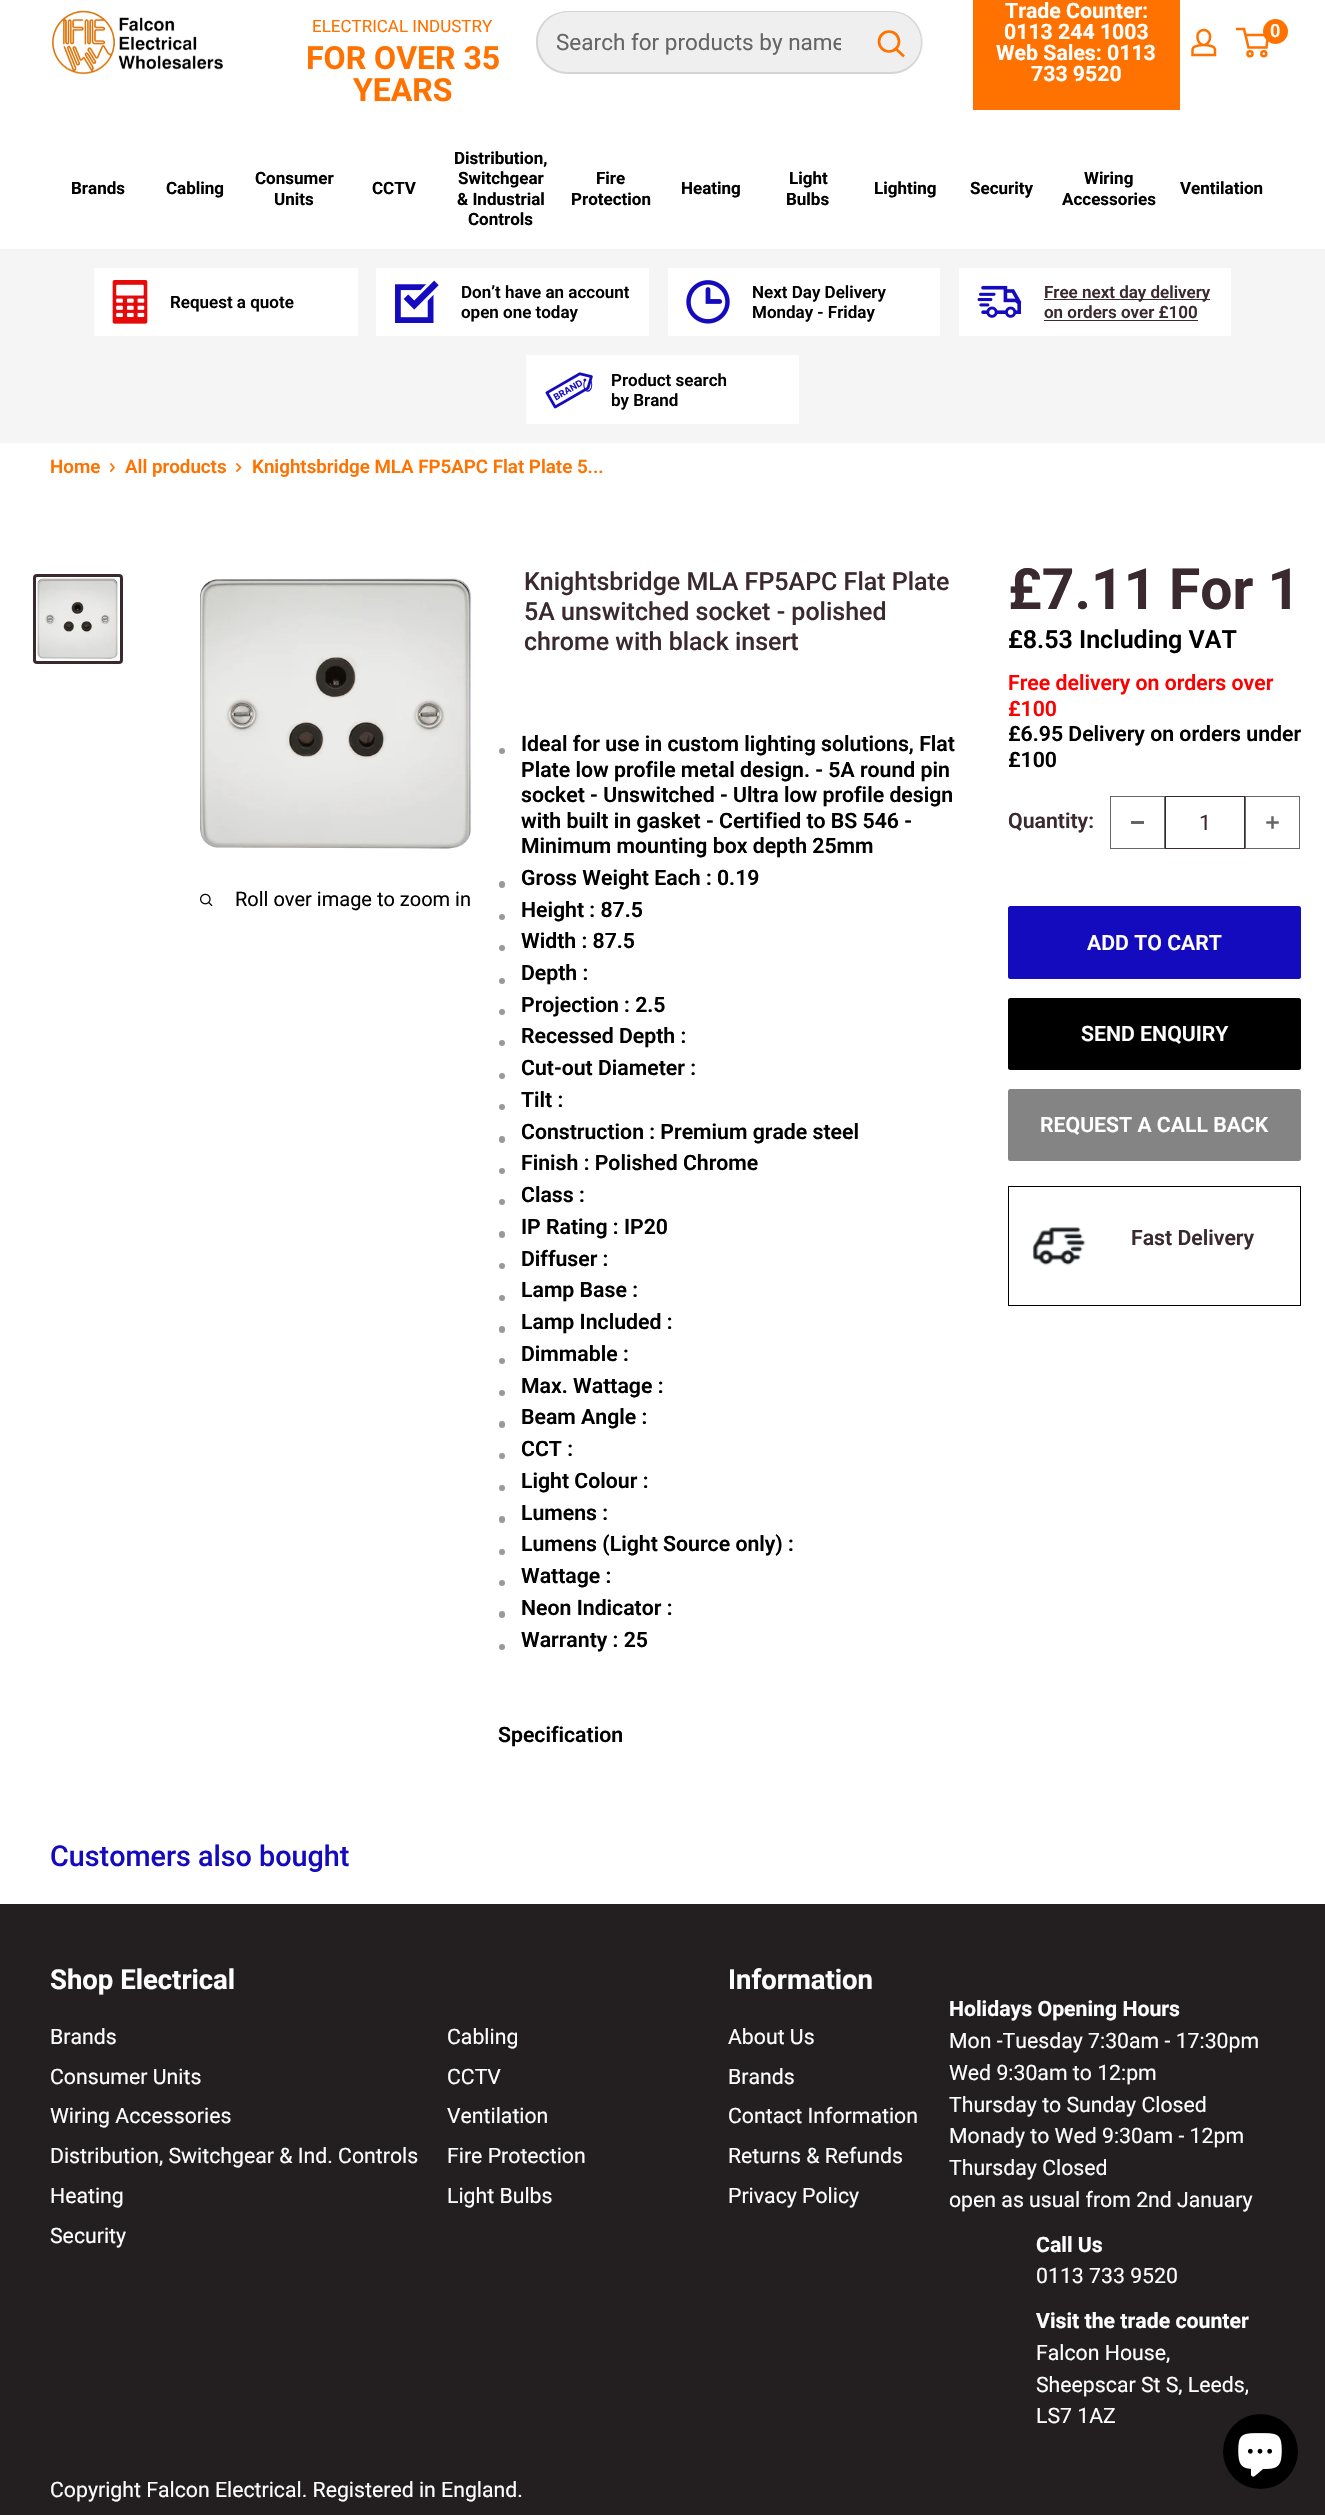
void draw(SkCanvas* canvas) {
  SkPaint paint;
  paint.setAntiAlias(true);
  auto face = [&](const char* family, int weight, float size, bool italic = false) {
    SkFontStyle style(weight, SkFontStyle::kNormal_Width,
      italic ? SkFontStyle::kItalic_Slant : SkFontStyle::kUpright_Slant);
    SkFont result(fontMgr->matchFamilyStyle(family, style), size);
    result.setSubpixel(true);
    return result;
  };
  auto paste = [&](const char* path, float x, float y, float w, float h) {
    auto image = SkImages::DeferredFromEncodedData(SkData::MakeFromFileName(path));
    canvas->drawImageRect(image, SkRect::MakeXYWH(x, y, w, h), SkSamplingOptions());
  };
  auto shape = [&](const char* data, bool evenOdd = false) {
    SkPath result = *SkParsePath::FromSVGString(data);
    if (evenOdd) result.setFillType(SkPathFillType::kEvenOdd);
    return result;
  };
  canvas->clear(0xffffffff);
  paste("img/1.png", 51, 10, 172, 65);
  paint.setColor(0xffefefef);
  canvas->drawPath(shape("M567.5 11H860V74H567.5C550 74 536 60 536 42.5C536 25 550 11 567.5 11Z"), paint);
  paint.setColor(0xffd5d4d4);
  canvas->drawPath(shape("M568 11H860V74H568C550 74 536 60 536 42C536 25 550 11 568 11ZM568 12H860V72H568C551 72 538 59 538 42C538 26 551 12 568 12Z", true), paint);
  paint.setColor(0xffefefef);
  canvas->drawPath(shape("M860 11H891.5C909 11 923 25 923 42.5C923 60 909 74 891.5 74H860Z"), paint);
  paint.setColor(0xffd5d4d4);
  canvas->drawPath(shape("M860 11H891C909 11 922 25 922 42C922 60 909 74 891 74H860ZM860 12H891C908 12 921 26 921 42C921 59 908 72 891 72H860Z", true), paint);
  paint.setStroke(true);
  paint.setStrokeWidth(2.7f);
  paint.setStrokeCap(SkPaint::kSquare_Cap);
  paint.setColor(0xffff7200);
  canvas->drawPath(shape("M903 55.5L896 49"), paint);
  paint.setStrokeCap(SkPaint::kButt_Cap);
  canvas->drawCircle(889, 41.5f, 10, paint);
  paint.setStroke(false);
  canvas->drawRect(SkRect::MakeXYWH(973, 0, 207, 110), paint);
  paste("img/2.png", 1191, 28, 26, 29);
  paint.setStroke(true);
  paint.setStrokeWidth(2.5f);
  canvas->drawCircle(1250, 53.8f, 2.5f, paint);
  canvas->drawCircle(1263.8f, 53.8f, 2.5f, paint);
  canvas->drawPath(shape("M1245.5 35H1268L1266.5 47.5H1248.5L1244 29H1236"), paint);
  paint.setStroke(false);
  canvas->drawCircle(1275.5f, 31.5f, 12.5f, paint);
  paint.setColor(0xfff5f5f5);
  canvas->drawRect(SkRect::MakeXYWH(0, 249, 1325, 194), paint);
  paint.setColor(0xffffffff);
  canvas->drawRect(SkRect::MakeXYWH(94, 268, 264, 68), paint);
  paste("img/3.png", 112, 280, 36, 44);
  canvas->drawRect(SkRect::MakeXYWH(376, 268, 273, 68), paint);
  paste("img/4.png", 395, 280, 44, 43);
  canvas->drawRect(SkRect::MakeXYWH(668, 268, 272, 68), paint);
  paste("img/5.png", 686, 280, 44, 44);
  canvas->drawRect(SkRect::MakeXYWH(959, 268, 272, 68), paint);
  paste("img/6.png", 977, 285, 45, 33);
  {
    const struct { float x, y, w, h; SkColor color; } items[] = {
      {1044, 299, 166, 1, 0xff3a2a2f},
      {1044, 320, 154, 1, 0xff3a2a2f},
      {526, 355, 273, 69, 0xffffffff},
    };
    for (auto [x, y, w, h, color] : items) {
      paint.setColor(color);
      canvas->drawRect(SkRect::MakeXYWH(x, y, w, h), paint);
    }
  }
  paste("img/7.png", 545, 372, 48, 37);
  paint.setStroke(true);
  paint.setStrokeWidth(1.7f);
  paint.setStrokeCap(SkPaint::kSquare_Cap);
  paint.setColor(0xffff7200);
  canvas->drawPath(shape("M111 464L114 467.5L111 471"), paint);
  canvas->drawPath(shape("M237 464L240.5 467.5L237 471"), paint);
  paint.setStrokeWidth(3);
  paint.setStrokeCap(SkPaint::kButt_Cap);
  paint.setColor(0xff3a2a2f);
  canvas->drawRoundRect(SkRect::MakeXYWH(34.5f, 575.5f, 87, 87), 2.5f, 2.5f, paint);
  paste("img/8.png", 37, 578, 81, 81);
  paste("img/9.png", 200, 578, 272, 271);
  paste("img/10.png", 200, 893, 13, 14);
  paint.setStroke(false);
  paint.setColor(0xff999999);
  canvas->drawCircle(502, 751, 3, paint);
  canvas->drawRoundRect(SkRect::MakeXYWH(499, 881, 6, 7), 3, 3, paint);
  canvas->drawCircle(502, 917, 3, paint);
  canvas->drawCircle(502, 948, 3, paint);
  canvas->drawCircle(502, 981, 3, paint);
  canvas->drawCircle(502, 1012, 3, paint);
  canvas->drawCircle(502, 1043, 3, paint);
  canvas->drawCircle(502, 1076, 3, paint);
  canvas->drawCircle(502, 1107, 3, paint);
  canvas->drawRoundRect(SkRect::MakeXYWH(499, 1136, 6, 7), 3, 3, paint);
  canvas->drawCircle(502, 1171, 3, paint);
  canvas->drawCircle(502, 1202, 3, paint);
  canvas->drawRoundRect(SkRect::MakeXYWH(499, 1231, 6, 7), 3, 3, paint);
  canvas->drawCircle(502, 1266, 3, paint);
  canvas->drawCircle(502, 1298, 3, paint);
  canvas->drawRoundRect(SkRect::MakeXYWH(499, 1326, 6, 7), 3, 3, paint);
  canvas->drawCircle(502, 1361, 3, paint);
  canvas->drawCircle(502, 1393, 3, paint);
  canvas->drawRoundRect(SkRect::MakeXYWH(499, 1421, 6, 7), 3, 3, paint);
  canvas->drawCircle(502, 1456, 3, paint);
  canvas->drawCircle(502, 1488, 3, paint);
  canvas->drawRoundRect(SkRect::MakeXYWH(499, 1516, 6, 7), 3, 3, paint);
  canvas->drawCircle(502, 1552, 3, paint);
  canvas->drawCircle(502, 1583, 3, paint);
  canvas->drawRoundRect(SkRect::MakeXYWH(499, 1611, 6, 7), 3, 3, paint);
  canvas->drawCircle(502, 1647, 3, paint);
  paint.setStroke(true);
  paint.setStrokeWidth(1);
  paint.setColor(0xff666666);
  canvas->drawRect(SkRect::MakeXYWH(1110.5f, 796.5f, 54, 52), paint);
  paint.setStroke(false);
  canvas->drawRect(SkRect::MakeXYWH(1131, 821, 13, 3), paint);
  paint.setStroke(true);
  paint.setColor(0xff3a2a2f);
  canvas->drawRect(SkRect::MakeXYWH(1165.5f, 796.5f, 79, 52), paint);
  paint.setColor(0xff666666);
  canvas->drawRect(SkRect::MakeXYWH(1245.5f, 796.5f, 54, 52), paint);
  paste("img/11.png", 1266, 816, 13, 13);
  paint.setStroke(false);
  paint.setColor(0xff140abe);
  canvas->drawRoundRect(SkRect::MakeXYWH(1008, 906, 293, 73), 2.5f, 2.5f, paint);
  paint.setColor(0xff000000);
  canvas->drawRoundRect(SkRect::MakeXYWH(1008, 998, 293, 72), 2.5f, 2.5f, paint);
  paint.setColor(0xff848484);
  canvas->drawRoundRect(SkRect::MakeXYWH(1008, 1089, 293, 72), 2.5f, 2.5f, paint);
  paint.setStroke(true);
  paint.setColor(0xff000000);
  canvas->drawRect(SkRect::MakeXYWH(1008.5f, 1186.5f, 292, 119), paint);
  paste("img/12.png", 1032, 1227, 54, 39);
  paint.setStroke(false);
  paint.setColor(0xff231f20);
  canvas->drawRect(SkRect::MakeXYWH(0, 1904, 1325, 611), paint);
  paint.setColor(0xff000000);
  canvas->drawCircle(1260.5f, 2451.5f, 37.5f, paint);
  paste("img/13.png", 1238, 2433, 44, 44);
  auto f0 = face("Roboto", 400, 17);
  paint.setColor(0xffff7200);
  canvas->drawString("ELECTRICAL INDUSTRY", 312, 32, f0, paint);
  auto f1 = face("Roboto", 700, 32);
  canvas->drawString("FOR OVER 35", 306, 69, f1, paint);
  canvas->drawString("YEARS", 353, 101, f1, paint);
  canvas->save();
  canvas->clipRect(SkRect::MakeXYWH(556, 29, 285, 26));
  auto f2 = face("Roboto", 400, 22.5f);
  paint.setColor(0xff656565);
  canvas->drawString("Search for products by name", 556, 50, f2, paint);
  canvas->restore();
  auto f3 = face("Roboto", 700, 21.25f);
  paint.setColor(0xffffffff);
  {
    const struct { const char* s; float x, y; } items[] = {
      {"Trade Counter:", 1005, 18},
      {"0113 244 1003", 1004, 39},
      {"Web Sales: 0113", 996, 60},
      {"733 9520", 1031, 81},
    };
    for (auto [s, x, y] : items) {
      canvas->drawString(s, x, y, f3, paint);
    }
  }
  auto f4 = face("Roboto", 600, 18);
  canvas->drawString("0", 1270, 37, f4, paint);
  auto f5 = face("Roboto", 700, 17);
  paint.setColor(0xff000000);
  {
    const struct { const char* s; float x, y; } items[] = {
      {"Brands", 71, 194},
      {"Cabling", 166, 194},
      {"Consumer", 255, 184},
      {"Units", 274, 205},
      {"CCTV", 372, 194},
      {"Distribution,", 454, 164},
      {"Switchgear", 458, 184},
      {"& Industrial", 457, 205},
      {"Controls", 468, 225},
      {"Fire", 596, 184},
      {"Protection", 571, 205},
      {"Heating", 681, 194},
      {"Light", 789, 184},
      {"Bulbs", 786, 205},
      {"Lighting", 874, 194},
      {"Security", 970, 194},
      {"Wiring", 1084, 184},
      {"Accessories", 1062, 205},
      {"Ventilation", 1180, 194},
    };
    for (auto [s, x, y] : items) {
      canvas->drawString(s, x, y, f5, paint);
    }
  }
  auto f6 = face("Roboto", 600, 17);
  {
    const struct { const char* s; float x, y; } items[] = {
      {"Request a quote", 170, 308},
      {"Don’t have an account", 461, 298},
      {"open one today", 461, 318},
      {"Next Day Delivery", 752, 298},
      {"Monday - Friday", 752, 318},
    };
    for (auto [s, x, y] : items) {
      canvas->drawString(s, x, y, f6, paint);
    }
  }
  paint.setColor(0xff3a2a2f);
  canvas->drawString("Free next day delivery", 1044, 298, f6, paint);
  canvas->drawString("on orders over £100", 1044, 318, f6, paint);
  paint.setColor(0xff000000);
  canvas->drawString("Product search", 611, 386, f6, paint);
  canvas->drawString("by Brand", 611, 406, f6, paint);
  auto f7 = face("Roboto", 600, 18.75f);
  paint.setColor(0xffff7200);
  {
    const struct { const char* s; float x, y; } items[] = {
      {"Home", 50, 473},
      {"All products", 125, 473},
      {"Knightsbridge MLA FP5APC Flat Plate 5...", 252, 473},
    };
    for (auto [s, x, y] : items) {
      canvas->drawString(s, x, y, f7, paint);
    }
  }
  auto f8 = face("Roboto", 400, 20);
  paint.setColor(0xff000000);
  canvas->drawString("Roll over image to zoom in", 235, 906, f8, paint);
  auto f9 = face("Roboto", 500, 25);
  paint.setColor(0xff3a2a2f);
  {
    const struct { const char* s; float x, y; } items[] = {
      {"Knightsbridge MLA FP5APC Flat Plate", 524, 590},
      {"5A unswitched socket - polished", 524, 620},
      {"chrome with black insert", 524, 650},
    };
    for (auto [s, x, y] : items) {
      canvas->drawString(s, x, y, f9, paint);
    }
  }
  auto f10 = face("Roboto", 600, 21.25f);
  paint.setColor(0xff000000);
  {
    const struct { const char* s; float x, y; } items[] = {
      {"Ideal for use in custom lighting solutions, Flat", 521, 751},
      {"Plate low profile metal design. - 5A round pin", 521, 777},
      {"socket - Unswitched - Ultra low profile design", 521, 802},
      {"with built in gasket - Certified to BS 546 -", 521, 828},
      {"Minimum mounting box depth 25mm", 521, 853},
      {"Gross Weight Each : 0.19", 521, 885},
      {"Height : 87.5", 521, 917},
      {"Width : 87.5", 521, 948},
      {"Depth :", 521, 980},
      {"Projection : 2.5", 521, 1012},
      {"Recessed Depth :", 521, 1043},
      {"Cut-out Diameter :", 521, 1075},
      {"Tilt :", 521, 1107},
      {"Construction : Premium grade steel", 521, 1139},
      {"Finish : Polished Chrome", 521, 1170},
      {"Class :", 521, 1202},
      {"IP Rating : IP20", 521, 1234},
      {"Diffuser :", 521, 1266},
      {"Lamp Base :", 521, 1297},
      {"Lamp Included :", 521, 1329},
      {"Dimmable :", 521, 1361},
      {"Max. Wattage :", 521, 1393},
      {"Beam Angle :", 521, 1424},
      {"CCT :", 521, 1456},
      {"Light Colour :", 521, 1488},
      {"Lumens :", 521, 1520},
      {"Lumens (Light Source only) :", 521, 1551},
      {"Wattage :", 521, 1583},
      {"Neon Indicator :", 521, 1615},
      {"Warranty : 25", 521, 1647},
      {"Specification", 498, 1742},
    };
    for (auto [s, x, y] : items) {
      canvas->drawString(s, x, y, f10, paint);
    }
  }
  auto f11 = face("Roboto", 700, 57);
  paint.setColor(0xff3a2a2f);
  canvas->drawString("£7.11", 1008, 609, f11, paint);
  canvas->drawString("For 1", 1169, 609, f11, paint);
  auto f12 = face("Roboto", 600, 25);
  paint.setColor(0xff000000);
  canvas->drawString("£8.53 Including VAT", 1008, 648, f12, paint);
  paint.setColor(0xffff0000);
  canvas->drawString("Free delivery on orders over", 1008, 690, f10, paint);
  canvas->drawString("£100", 1008, 716, f10, paint);
  paint.setColor(0xff000000);
  canvas->drawString("£6.95 Delivery on orders under", 1008, 741, f10, paint);
  canvas->drawString("£100", 1008, 767, f10, paint);
  paint.setColor(0xff3a2a2f);
  canvas->drawString("Quantity:", 1008, 828, f10, paint);
  auto f13 = face("Roboto", 400, 21.25f);
  canvas->drawString("1", 1199, 830, f13, paint);
  paint.setColor(0xffffffff);
  {
    const struct { const char* s; float x, y; } items[] = {
      {"ADD TO CART", 1087, 950},
      {"SEND ENQUIRY", 1081, 1041},
      {"REQUEST A CALL BACK", 1040, 1132},
    };
    for (auto [s, x, y] : items) {
      canvas->drawString(s, x, y, f10, paint);
    }
  }
  paint.setColor(0xff3a2a2f);
  canvas->drawString("Fast Delivery", 1131, 1245, f10, paint);
  auto f14 = face("Roboto", 500, 28.75f);
  paint.setColor(0xff140abe);
  canvas->drawString("Customers also bought", 50, 1866, f14, paint);
  auto f15 = face("Roboto", 700, 27.5f);
  paint.setColor(0xffffffff);
  canvas->drawString("Shop Electrical", 50, 1989, f15, paint);
  {
    const struct { const char* s; float x, y; } items[] = {
      {"Brands", 50, 2044},
      {"Cabling", 447, 2044},
      {"Consumer Units", 50, 2084},
      {"CCTV", 447, 2084},
      {"Wiring Accessories", 50, 2123},
      {"Ventilation", 447, 2123},
      {"Distribution, Switchgear & Ind. Controls", 50, 2163},
      {"Fire Protection", 447, 2163},
      {"Heating", 50, 2203},
      {"Light Bulbs", 447, 2203},
      {"Security", 50, 2243},
    };
    for (auto [s, x, y] : items) {
      canvas->drawString(s, x, y, f13, paint);
    }
  }
  canvas->drawString("Information", 728, 1989, f15, paint);
  {
    const struct { const char* s; float x, y; } items[] = {
      {"About Us", 728, 2044},
      {"Brands", 728, 2084},
      {"Contact Information", 728, 2123},
      {"Returns & Refunds", 728, 2163},
      {"Privacy Policy", 728, 2203},
    };
    for (auto [s, x, y] : items) {
      canvas->drawString(s, x, y, f13, paint);
    }
  }
  canvas->drawString("Holidays Opening Hours", 949, 2016, f3, paint);
  {
    const struct { const char* s; float x, y; } items[] = {
      {"Mon -Tuesday 7:30am - 17:30pm", 949, 2048},
      {"Wed 9:30am to 12:pm", 949, 2080},
      {"Thursday to Sunday Closed", 949, 2112},
      {"Monady to Wed 9:30am - 12pm", 949, 2143},
      {"Thursday Closed", 949, 2175},
      {"open as usual from 2nd January", 949, 2207},
    };
    for (auto [s, x, y] : items) {
      canvas->drawString(s, x, y, f13, paint);
    }
  }
  canvas->drawString("Call Us", 1036, 2252, f3, paint);
  canvas->drawString("0113 733 9520", 1036, 2283, f13, paint);
  canvas->drawString("Visit the trade counter", 1036, 2328, f3, paint);
  {
    const struct { const char* s; float x, y; } items[] = {
      {"Falcon House,", 1036, 2360},
      {"Sheepscar St S, Leeds,", 1036, 2392},
      {"LS7 1AZ", 1036, 2423},
      {"Copyright Falcon Electrical. Registered in England.", 50, 2497},
    };
    for (auto [s, x, y] : items) {
      canvas->drawString(s, x, y, f13, paint);
    }
  }
}
